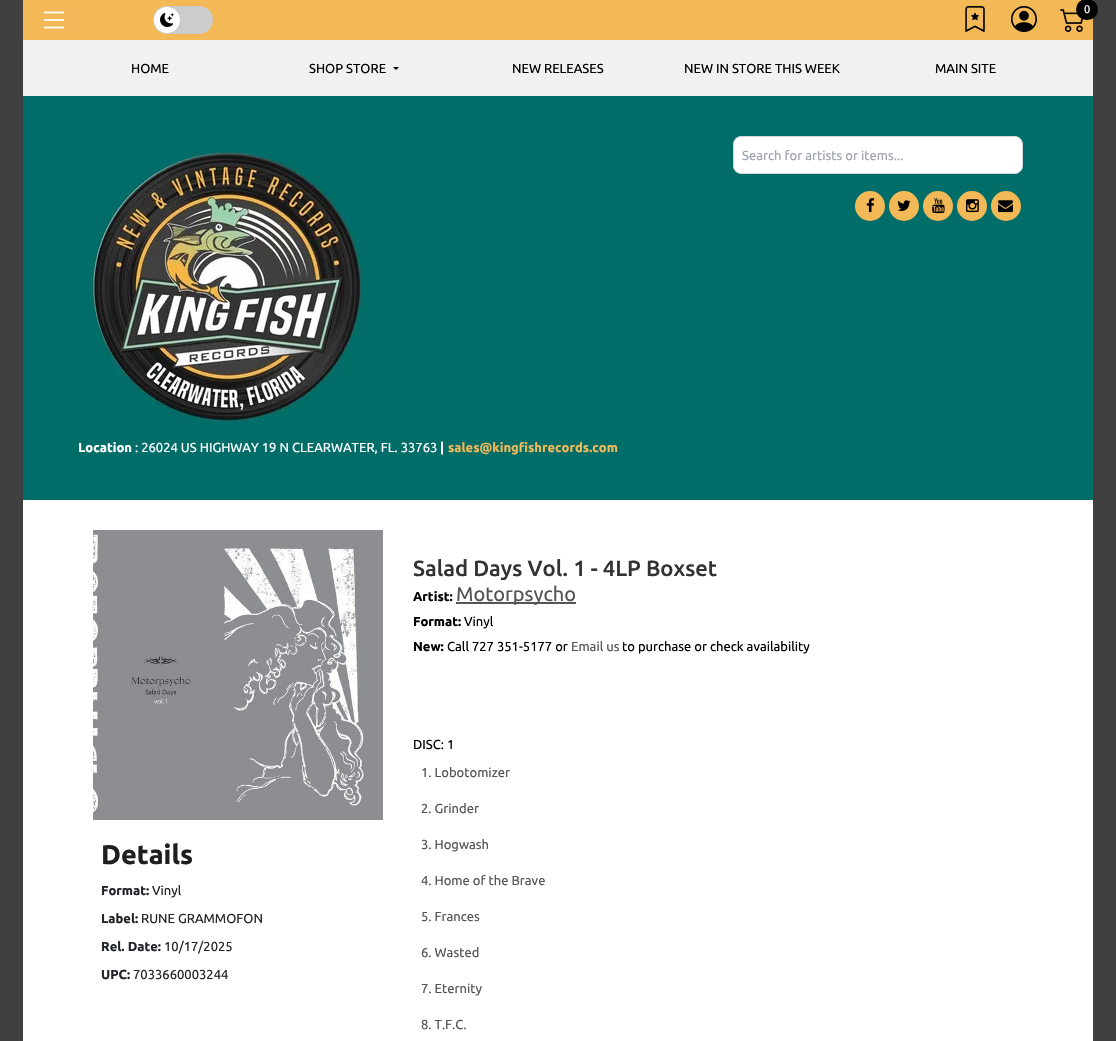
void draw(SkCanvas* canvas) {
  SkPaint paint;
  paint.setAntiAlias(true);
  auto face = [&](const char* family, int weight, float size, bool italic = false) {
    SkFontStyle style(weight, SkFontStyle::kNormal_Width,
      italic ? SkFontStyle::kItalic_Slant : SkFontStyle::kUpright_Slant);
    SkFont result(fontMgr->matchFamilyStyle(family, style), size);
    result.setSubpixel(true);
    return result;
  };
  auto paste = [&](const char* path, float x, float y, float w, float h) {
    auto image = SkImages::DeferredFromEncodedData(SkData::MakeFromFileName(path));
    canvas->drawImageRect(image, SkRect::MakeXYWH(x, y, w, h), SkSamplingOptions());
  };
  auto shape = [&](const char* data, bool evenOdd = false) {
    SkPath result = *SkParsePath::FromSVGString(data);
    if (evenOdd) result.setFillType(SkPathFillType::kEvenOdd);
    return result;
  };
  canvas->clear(0xff404041);
  paint.setColor(0xffffffff);
  canvas->drawRect(SkRect::MakeXYWH(23, 500, 1070, 541), paint);
  paint.setColor(0xfff4b957);
  canvas->drawRect(SkRect::MakeXYWH(23, 0, 1070, 40), paint);
  paste("img/1.png", 43, 11, 22, 18);
  paint.setColor(0xffcccccc);
  canvas->drawRoundRect(SkRect::MakeXYWH(153, 6, 60, 28), 14, 14, paint);
  paint.setColor(0xffffffff);
  canvas->drawCircle(167, 20, 13, paint);
  paste("img/2.png", 160, 13, 14, 14);
  paste("img/3.png", 965, 6, 20, 26);
  paste("img/4.png", 1011, 6, 26, 26);
  paste("img/5.png", 1060, 9, 23, 23);
  paint.setColor(0xff000000);
  canvas->drawRoundRect(SkRect::MakeXYWH(1076, -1, 22, 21), 10.5f, 10.5f, paint);
  paint.setColor(0xff006d69);
  canvas->drawRect(SkRect::MakeXYWH(23, 96, 1070, 404), paint);
  paint.setColor(0xfff1f1f1);
  canvas->drawRect(SkRect::MakeXYWH(23, 40, 1070, 56), paint);
  paint.setColor(0xff000000);
  canvas->drawPath(shape("M393 67H399L396 70Z"), paint);
  paint.setColor(0xffffffff);
  canvas->drawRoundRect(SkRect::MakeXYWH(733.5f, 136.5f, 289, 37), 7.5f, 7.5f, paint);
  paint.setStroke(true);
  paint.setStrokeWidth(1);
  paint.setColor(0xffd1d5db);
  canvas->drawRoundRect(SkRect::MakeXYWH(733.5f, 136.5f, 289, 37), 7.5f, 7.5f, paint);
  paint.setStroke(false);
  paint.setColor(0xfff4b957);
  canvas->drawCircle(870, 206, 15, paint);
  paste("img/6.png", 866, 198, 9, 15);
  canvas->drawCircle(904, 206, 15, paint);
  paste("img/7.png", 897, 200, 14, 11);
  canvas->drawCircle(938, 206, 15, paint);
  paste("img/8.png", 932, 198, 13, 16);
  canvas->drawCircle(972, 206, 15, paint);
  paste("img/9.png", 966, 199, 13, 14);
  canvas->drawCircle(1006, 206, 15, paint);
  paste("img/10.png", 998, 200, 15, 13);
  paste("img/11.png", 90, 152, 276, 273);
  paste("img/12.png", 93, 530, 290, 290);
  paint.setColor(0xff555555);
  canvas->drawRect(SkRect::MakeXYWH(456, 602, 120, 2), paint);
  auto f0 = face("Ubuntu", 400, 11);
  paint.setColor(0xffffffff);
  canvas->drawString("0", 1084, 13, f0, paint);
  auto f1 = face("Ubuntu", 400, 13);
  paint.setColor(0xff000000);
  {
    const struct { const char* s; float x, y; } items[] = {
      {"HOME", 131, 73},
      {"SHOP STORE", 309, 73},
      {"NEW RELEASES", 512, 73},
      {"NEW IN STORE THIS WEEK", 684, 73},
      {"MAIN SITE", 935, 73},
    };
    for (auto [s, x, y] : items) {
      canvas->drawString(s, x, y, f1, paint);
    }
  }
  paint.setColor(0xff9ca3af);
  canvas->drawString("Search for artists or items...", 742, 160, f1, paint);
  auto f2 = face("Ubuntu", 700, 13);
  paint.setColor(0xffffffff);
  canvas->drawString("Location", 78, 452, f2, paint);
  canvas->drawString(": 26024 US HIGHWAY 19 N CLEARWATER, FL. 33763", 135, 452, f1, paint);
  canvas->drawString("|", 440, 452, f2, paint);
  paint.setColor(0xfff4b957);
  canvas->drawString("sales@kingfishrecords.com", 448, 452, f2, paint);
  auto f3 = face("Ubuntu", 700, 27);
  paint.setColor(0xff1d1f20);
  canvas->drawString("Details", 101, 864, f3, paint);
  paint.setColor(0xff212529);
  canvas->drawString("Format:", 101, 895, f2, paint);
  canvas->drawString("Vinyl", 152, 895, f1, paint);
  canvas->drawString("Label:", 101, 923, f2, paint);
  canvas->drawString("RUNE GRAMMOFON", 141, 923, f1, paint);
  canvas->drawString("Rel. Date:", 101, 951, f2, paint);
  canvas->drawString("10/17/2025", 164, 951, f1, paint);
  canvas->drawString("UPC:", 101, 979, f2, paint);
  canvas->drawString("7033660003244", 133, 979, f1, paint);
  auto f4 = face("Ubuntu", 500, 22);
  paint.setColor(0xff333333);
  canvas->drawString("Salad Days Vol. 1 - 4LP Boxset", 413, 576, f4, paint);
  paint.setColor(0xff000000);
  canvas->drawString("Artist:", 413, 601, f2, paint);
  auto f5 = face("Ubuntu", 400, 20);
  paint.setColor(0xff555555);
  canvas->drawString("Motorpsycho", 456, 601, f5, paint);
  paint.setColor(0xff000000);
  canvas->drawString("Format:", 413, 626, f2, paint);
  canvas->drawString("Vinyl", 464, 626, f1, paint);
  canvas->drawString("New:", 413, 651, f2, paint);
  canvas->drawString("Call 727 351-5177 or", 447, 651, f1, paint);
  paint.setColor(0xff555555);
  canvas->drawString("Email us", 571, 651, f1, paint);
  paint.setColor(0xff000000);
  canvas->drawString("to purchase or check availability", 622, 651, f1, paint);
  canvas->drawString("DISC: 1", 413, 749, f1, paint);
  paint.setColor(0xff555555);
  {
    const struct { const char* s; float x, y; } items[] = {
      {"1. Lobotomizer", 421, 777},
      {"2. Grinder", 421, 813},
      {"3. Hogwash", 421, 849},
      {"4. Home of the Brave", 421, 885},
      {"5. Frances", 421, 921},
      {"6. Wasted", 421, 957},
      {"7. Eternity", 421, 993},
      {"8. T.F.C.", 421, 1029},
    };
    for (auto [s, x, y] : items) {
      canvas->drawString(s, x, y, f1, paint);
    }
  }
}
